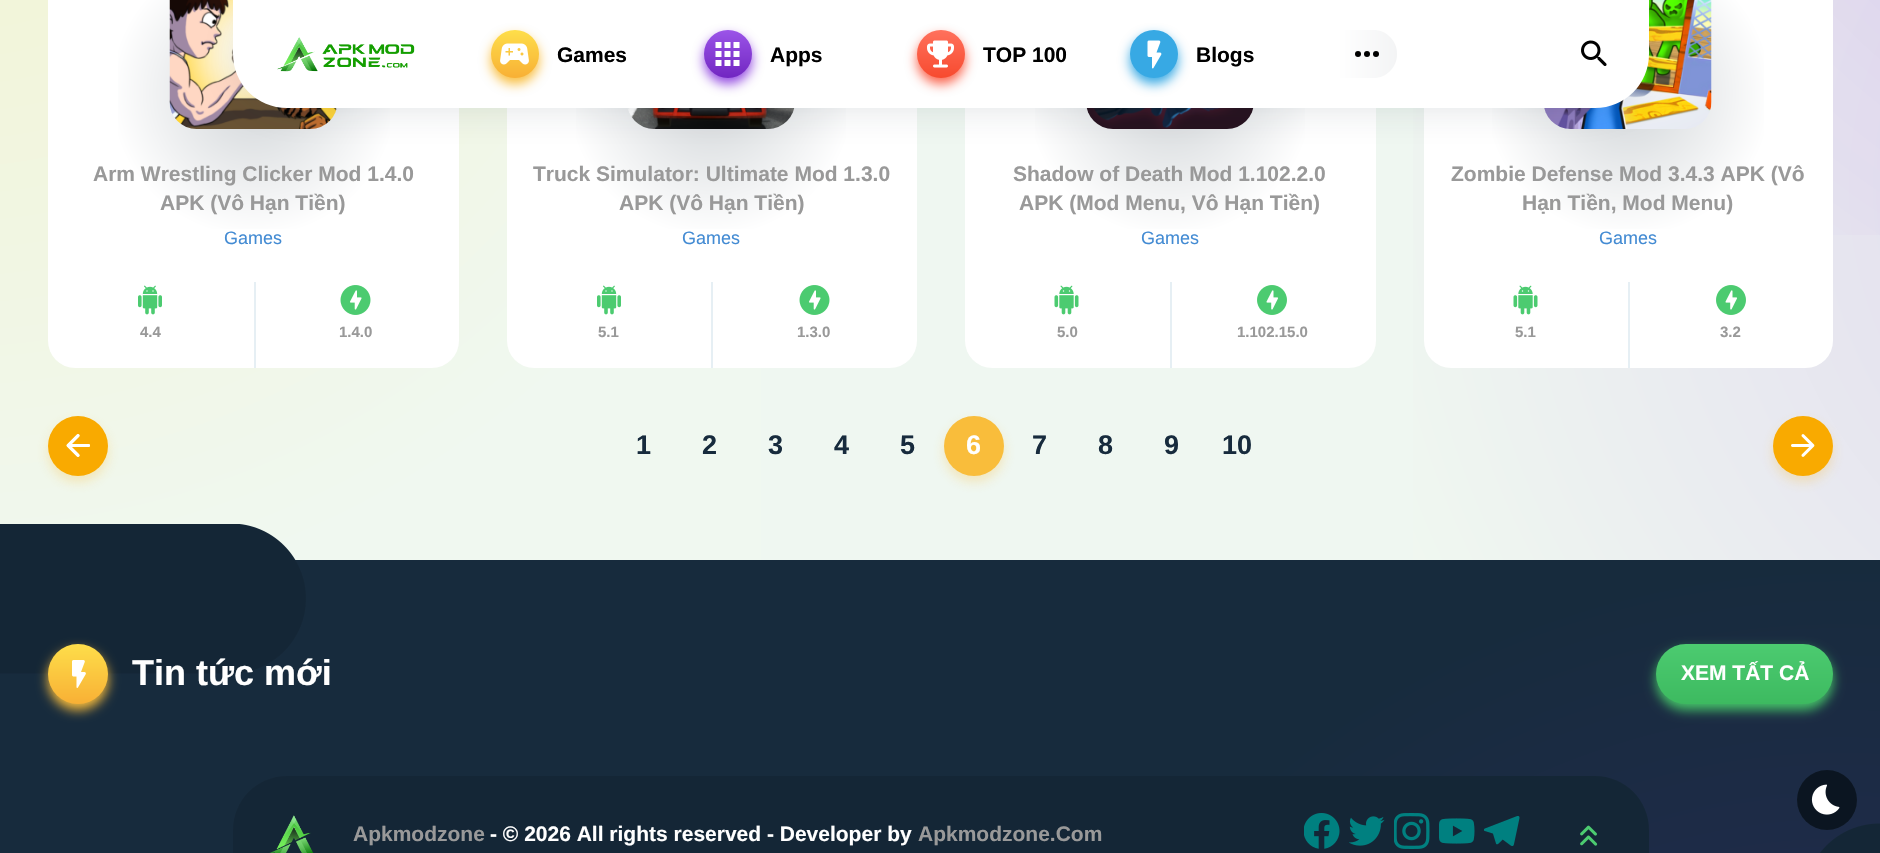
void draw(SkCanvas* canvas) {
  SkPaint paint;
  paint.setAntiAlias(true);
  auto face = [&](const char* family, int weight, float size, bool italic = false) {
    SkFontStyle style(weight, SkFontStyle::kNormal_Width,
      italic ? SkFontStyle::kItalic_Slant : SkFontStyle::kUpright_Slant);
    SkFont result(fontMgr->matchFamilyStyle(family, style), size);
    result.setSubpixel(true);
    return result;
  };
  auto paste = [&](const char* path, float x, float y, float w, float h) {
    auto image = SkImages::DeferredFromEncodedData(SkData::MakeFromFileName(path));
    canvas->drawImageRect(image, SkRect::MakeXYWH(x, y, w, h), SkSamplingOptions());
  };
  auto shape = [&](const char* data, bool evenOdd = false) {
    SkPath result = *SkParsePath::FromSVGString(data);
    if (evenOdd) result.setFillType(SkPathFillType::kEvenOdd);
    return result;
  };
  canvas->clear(0xffeff7f1);
  {
    const SkColor colors[] = {0xfff3f3cf, 0xfff0f8f0};
    const float stops[] = {0, 1};
    paint.setShader(SkGradientShader::MakeRadial({-49, -283}, 900, colors, stops, 2, SkTileMode::kClamp));
    paint.setAlpha(255);
  }
  canvas->drawRect(SkRect::MakeXYWH(0, 0, 761, 560), paint);
  {
    const SkColor colors[] = {0xffdfd7ef, 0xfff0f8f0};
    const float stops[] = {0, 1};
    paint.setShader(SkGradientShader::MakeRadial({2217, 188}, 900, colors, stops, 2, SkTileMode::kClamp));
    paint.setAlpha(255);
  }
  canvas->drawRect(SkRect::MakeXYWH(1413, 0, 467, 560), paint);
  {
    const SkColor colors[] = {0x338224e3, 0x008224e3};
    const float stops[] = {0, 1};
    paint.setShader(SkGradientShader::MakeRadial({2312, -442}, 900, colors, stops, 2, SkTileMode::kClamp));
    paint.setAlpha(255);
  }
  canvas->drawRect(SkRect::MakeXYWH(1833, 0, 47, 235), paint);
  paint.setShader(nullptr);
  paint.setColor(0xffffffff);
  canvas->drawRoundRect(SkRect::MakeXYWH(48, -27, 411, 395), 27, 27, paint);
  {
    const SkColor colors[] = {0xffd1d5d8, 0xffffffff};
    const float stops[] = {0, 1};
    paint.setShader(SkGradientShader::MakeRadial({254, 93}, 144, colors, stops, 2, SkTileMode::kClamp));
    paint.setAlpha(255);
  }
  canvas->drawRect(SkRect::MakeXYWH(118, 0, 272, 229), paint);
  paste("img/7.png", 169, 0, 168, 129);
  paint.setShader(nullptr);
  paint.setColor(0xffffffff);
  canvas->drawRoundRect(SkRect::MakeXYWH(507, -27, 410, 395), 27, 27, paint);
  {
    const SkColor colors[] = {0xffd1d5d8, 0xffffffff};
    const float stops[] = {0, 1};
    paint.setShader(SkGradientShader::MakeRadial({711, 93}, 144, colors, stops, 2, SkTileMode::kClamp));
    paint.setAlpha(255);
  }
  canvas->drawRect(SkRect::MakeXYWH(576, 108, 270, 121), paint);
  paste("img/10.png", 627, 108, 168, 21);
  paint.setShader(nullptr);
  paint.setColor(0xffffffff);
  canvas->drawRoundRect(SkRect::MakeXYWH(965, -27, 411, 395), 27, 27, paint);
  {
    const SkColor colors[] = {0xffd1d5d8, 0xffffffff};
    const float stops[] = {0, 1};
    paint.setShader(SkGradientShader::MakeRadial({1170, 93}, 144, colors, stops, 2, SkTileMode::kClamp));
    paint.setAlpha(255);
  }
  canvas->drawRect(SkRect::MakeXYWH(1035, 108, 270, 121), paint);
  paste("img/11.png", 1086, 108, 168, 21);
  paint.setShader(nullptr);
  paint.setColor(0xffffffff);
  canvas->drawRoundRect(SkRect::MakeXYWH(1424, -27, 409, 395), 27, 27, paint);
  {
    const SkColor colors[] = {0xffd1d5d8, 0xffffffff};
    const float stops[] = {0, 1};
    paint.setShader(SkGradientShader::MakeRadial({1628, 93}, 144, colors, stops, 2, SkTileMode::kClamp));
    paint.setAlpha(255);
  }
  canvas->drawRect(SkRect::MakeXYWH(1492, 0, 272, 229), paint);
  paste("img/14.png", 1544, 0, 168, 129);
  paint.setShader(nullptr);
  paint.setColor(0x33172b3d);
  paint.setMaskFilter(SkMaskFilter::MakeBlur(kNormal_SkBlurStyle, 24));
  canvas->drawRoundRect(SkRect::MakeXYWH(245, 15, 1392, 84), 42, 42, paint);
  paint.setMaskFilter(nullptr);
  paint.setColor(0xffffffff);
  canvas->drawPath(shape("M233 0H1649V54C1649 84 1625 108 1595 108H287C257 108 233 84 233 54Z"), paint);
  paste("img/1.png", 277, 37, 138, 35);
  paint.setColor(0xfff9bd3b);
  paint.setMaskFilter(SkMaskFilter::MakeBlur(kNormal_SkBlurStyle, 6));
  canvas->drawRoundRect(SkRect::MakeXYWH(491, 36, 48, 48), 24, 24, paint);
  paint.setMaskFilter(nullptr);
  {
    const SkColor colors[] = {0xfffede4a, 0xfff8b035};
    const float stops[] = {0, 1};
    const SkPoint ends[] = {{515, 30}, {515, 78}};
    paint.setShader(SkGradientShader::MakeLinear(ends, colors, stops, 2, SkTileMode::kClamp));
    paint.setAlpha(255);
  }
  canvas->drawCircle(515, 54, 24, paint);
  paste("img/2.png", 500, 43, 29, 22);
  paint.setShader(nullptr);
  paint.setColor(0xff9248e1);
  paint.setMaskFilter(SkMaskFilter::MakeBlur(kNormal_SkBlurStyle, 6));
  canvas->drawRoundRect(SkRect::MakeXYWH(704, 36, 48, 48), 24, 24, paint);
  paint.setMaskFilter(nullptr);
  {
    const SkColor colors[] = {0xff9b54e8, 0xff7126c1};
    const float stops[] = {0, 1};
    const SkPoint ends[] = {{728, 30}, {728, 78}};
    paint.setShader(SkGradientShader::MakeLinear(ends, colors, stops, 2, SkTileMode::kClamp));
    paint.setAlpha(255);
  }
  canvas->drawCircle(728, 54, 24, paint);
  paste("img/3.png", 715, 42, 25, 24);
  paint.setShader(nullptr);
  paint.setColor(0xfffb614a);
  paint.setMaskFilter(SkMaskFilter::MakeBlur(kNormal_SkBlurStyle, 6));
  canvas->drawRoundRect(SkRect::MakeXYWH(917, 36, 48, 48), 24, 24, paint);
  paint.setMaskFilter(nullptr);
  {
    const SkColor colors[] = {0xffff715c, 0xfff74a2f};
    const float stops[] = {0, 1};
    const SkPoint ends[] = {{941, 30}, {941, 78}};
    paint.setShader(SkGradientShader::MakeLinear(ends, colors, stops, 2, SkTileMode::kClamp));
    paint.setAlpha(255);
  }
  canvas->drawCircle(941, 54, 24, paint);
  paste("img/4.png", 927, 40, 27, 28);
  paint.setShader(nullptr);
  paint.setColor(0xff37a9e4);
  paint.setMaskFilter(SkMaskFilter::MakeBlur(kNormal_SkBlurStyle, 6));
  canvas->drawRoundRect(SkRect::MakeXYWH(1130, 36, 48, 48), 24, 24, paint);
  paint.setMaskFilter(nullptr);
  canvas->drawCircle(1154, 54, 24, paint);
  paste("img/5.png", 1147, 40, 15, 29);
  {
    const SkColor colors[] = {0xffffffff, 0xfff3f4f5};
    const float stops[] = {0, 1};
    const SkPoint ends[] = {{1337, 54}, {1397, 54}};
    paint.setShader(SkGradientShader::MakeLinear(ends, colors, stops, 2, SkTileMode::kClamp));
    paint.setAlpha(255);
  }
  canvas->drawPath(shape("M1337 30H1373C1386.5 30 1397 40.5 1397 54C1397 67.5 1386.5 78 1373 78H1337Z"), paint);
  paint.setShader(nullptr);
  paint.setColor(0xff000000);
  canvas->drawCircle(1358, 54, 3, paint);
  canvas->drawCircle(1367, 54, 3, paint);
  canvas->drawCircle(1376, 54, 3, paint);
  paste("img/6.png", 1581, 40, 26, 26);
  paste("img/8.png", 138, 285, 24, 30);
  paint.setColor(0xffe6eff4);
  canvas->drawRect(SkRect::MakeXYWH(254, 282, 2, 86), paint);
  paste("img/9.png", 340, 285, 31, 30);
  paste("img/8.png", 597, 285, 24, 30);
  canvas->drawRect(SkRect::MakeXYWH(711, 282, 2, 86), paint);
  paste("img/9.png", 799, 285, 31, 30);
  paste("img/12.png", 1054, 285, 25, 30);
  canvas->drawRect(SkRect::MakeXYWH(1170, 282, 2, 86), paint);
  paste("img/13.png", 1257, 285, 30, 30);
  paste("img/12.png", 1513, 285, 25, 30);
  canvas->drawRect(SkRect::MakeXYWH(1628, 282, 2, 86), paint);
  paste("img/13.png", 1716, 285, 30, 30);
  paint.setColor(0x4df9bd3b);
  paint.setMaskFilter(SkMaskFilter::MakeBlur(kNormal_SkBlurStyle, 6));
  canvas->drawRoundRect(SkRect::MakeXYWH(48, 422, 60, 60), 30, 30, paint);
  paint.setMaskFilter(nullptr);
  paint.setColor(0xfff9aa00);
  canvas->drawCircle(78, 446, 30, paint);
  paste("img/15.png", 66, 434, 24, 23);
  paint.setColor(0x4df9bd3b);
  paint.setMaskFilter(SkMaskFilter::MakeBlur(kNormal_SkBlurStyle, 6));
  canvas->drawRoundRect(SkRect::MakeXYWH(944, 422, 60, 60), 30, 30, paint);
  paint.setMaskFilter(nullptr);
  paint.setColor(0xfff9bd3b);
  canvas->drawCircle(974, 446, 30, paint);
  paint.setColor(0x4df9bd3b);
  paint.setMaskFilter(SkMaskFilter::MakeBlur(kNormal_SkBlurStyle, 6));
  canvas->drawRoundRect(SkRect::MakeXYWH(1773, 422, 60, 60), 30, 30, paint);
  paint.setMaskFilter(nullptr);
  paint.setColor(0xfff9aa00);
  canvas->drawCircle(1803, 446, 30, paint);
  paste("img/16.png", 1791, 434, 24, 23);
  paint.setColor(0xff172b3d);
  canvas->drawRect(SkRect::MakeXYWH(0, 560, 941, 293), paint);
  {
    const SkColor colors[] = {0xff2c2a5e, 0xff172b3d};
    const float stops[] = {0, 1};
    paint.setShader(SkGradientShader::MakeRadial({1841, 1460}, 900, colors, stops, 2, SkTileMode::kClamp));
    paint.setAlpha(255);
  }
  canvas->drawRect(SkRect::MakeXYWH(941, 560, 939, 293), paint);
  paste("img/17.png", 0, 524, 1880, 329);
  paint.setShader(nullptr);
  paint.setColor(0xfff9bd3b);
  paint.setMaskFilter(SkMaskFilter::MakeBlur(kNormal_SkBlurStyle, 6));
  canvas->drawRoundRect(SkRect::MakeXYWH(48, 650, 60, 60), 30, 30, paint);
  paint.setMaskFilter(nullptr);
  {
    const SkColor colors[] = {0xfffede4a, 0xfff8b035};
    const float stops[] = {0, 1};
    const SkPoint ends[] = {{78, 644}, {78, 704}};
    paint.setShader(SkGradientShader::MakeLinear(ends, colors, stops, 2, SkTileMode::kClamp));
    paint.setAlpha(255);
  }
  canvas->drawCircle(78, 674, 30, paint);
  paste("img/18.png", 72, 660, 14, 28);
  paint.setShader(nullptr);
  paint.setColor(0xff45c368);
  paint.setMaskFilter(SkMaskFilter::MakeBlur(kNormal_SkBlurStyle, 6));
  canvas->drawRoundRect(SkRect::MakeXYWH(1656, 650, 177, 60), 30, 30, paint);
  paint.setMaskFilter(nullptr);
  {
    const SkColor colors[] = {0xff4ccb70, 0xff3dba60};
    const float stops[] = {0, 1};
    const SkPoint ends[] = {{1745, 644}, {1745, 704}};
    paint.setShader(SkGradientShader::MakeLinear(ends, colors, stops, 2, SkTileMode::kClamp));
    paint.setAlpha(255);
  }
  canvas->drawRoundRect(SkRect::MakeXYWH(1656, 644, 177, 60), 30, 30, paint);
  paint.setShader(nullptr);
  paint.setColor(0xff142636);
  canvas->drawPath(shape("M287 776H1595C1625 776 1649 800 1649 830V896H233V830C233 800 257 776 287 776Z"), paint);
  paste("img/19.png", 269, 815, 45, 38);
  paste("img/20.png", 1304, 813, 36, 36);
  paste("img/21.png", 1349, 816, 36, 30);
  paste("img/22.png", 1394, 813, 36, 36);
  paste("img/23.png", 1439, 818, 36, 26);
  paste("img/24.png", 1484, 816, 36, 30);
  paste("img/25.png", 1580, 825, 18, 21);
  paint.setColor(0xff0b1521);
  canvas->drawCircle(1827, 800, 30, paint);
  paste("img/26.png", 1811, 784, 29, 31);
  auto f0 = face("Liberation Sans", 700, 21);
  paint.setColor(0xff000000);
  {
    const struct { const char* s; float x, y; } items[] = {
      {"Games", 557, 62},
      {"Apps", 770, 62},
      {"TOP 100", 983, 62},
      {"Blogs", 1196, 62},
    };
    for (auto [s, x, y] : items) {
      canvas->drawString(s, x, y, f0, paint);
    }
  }
  paint.setColor(0xff999999);
  canvas->drawString("Arm Wrestling Clicker Mod 1.4.0", 93, 181, f0, paint);
  canvas->drawString("APK (Vô Hạn Tiền)", 160, 210, f0, paint);
  auto f1 = face("Liberation Sans", 400, 18);
  paint.setColor(0xff438bd3);
  canvas->drawString("Games", 224, 244, f1, paint);
  auto f2 = face("Liberation Sans", 700, 15);
  paint.setColor(0xff999999);
  canvas->drawString("4.4", 140, 337, f2, paint);
  canvas->drawString("1.4.0", 339, 337, f2, paint);
  canvas->drawString("Truck Simulator: Ultimate Mod 1.3.0", 533, 181, f0, paint);
  canvas->drawString("APK (Vô Hạn Tiền)", 619, 210, f0, paint);
  paint.setColor(0xff438bd3);
  canvas->drawString("Games", 682, 244, f1, paint);
  paint.setColor(0xff999999);
  canvas->drawString("5.1", 598, 337, f2, paint);
  canvas->drawString("1.3.0", 797, 337, f2, paint);
  canvas->drawString("Shadow of Death Mod 1.102.2.0", 1013, 181, f0, paint);
  canvas->drawString("APK (Mod Menu, Vô Hạn Tiền)", 1019, 210, f0, paint);
  paint.setColor(0xff438bd3);
  canvas->drawString("Games", 1141, 244, f1, paint);
  paint.setColor(0xff999999);
  canvas->drawString("5.0", 1057, 337, f2, paint);
  canvas->drawString("1.102.15.0", 1237, 337, f2, paint);
  canvas->drawString("Zombie Defense Mod 3.4.3 APK (Vô", 1451, 181, f0, paint);
  canvas->drawString("Hạn Tiền, Mod Menu)", 1522, 210, f0, paint);
  paint.setColor(0xff438bd3);
  canvas->drawString("Games", 1599, 244, f1, paint);
  paint.setColor(0xff999999);
  canvas->drawString("5.1", 1515, 337, f2, paint);
  canvas->drawString("3.2", 1720, 337, f2, paint);
  auto f3 = face("Liberation Sans", 700, 27);
  paint.setColor(0xff172b3d);
  {
    const struct { const char* s; float x, y; } items[] = {
      {"1", 636, 454},
      {"2", 702, 454},
      {"3", 768, 454},
      {"4", 834, 454},
      {"5", 900, 454},
    };
    for (auto [s, x, y] : items) {
      canvas->drawString(s, x, y, f3, paint);
    }
  }
  paint.setColor(0xffffffff);
  canvas->drawString("6", 966, 454, f3, paint);
  paint.setColor(0xff172b3d);
  {
    const struct { const char* s; float x, y; } items[] = {
      {"7", 1032, 454},
      {"8", 1098, 454},
      {"9", 1164, 454},
      {"10", 1222, 454},
    };
    for (auto [s, x, y] : items) {
      canvas->drawString(s, x, y, f3, paint);
    }
  }
  auto f4 = face("Liberation Sans", 700, 36);
  paint.setColor(0xffffffff);
  canvas->drawString("Tin tức mới", 132, 685, f4, paint);
  canvas->drawString("XEM TẤT CẢ", 1681, 680, f0, paint);
  paint.setColor(0xff999999);
  canvas->drawString("Apkmodzone", 353, 841, f0, paint);
  paint.setColor(0xffffffff);
  canvas->drawString("- © 2026 All rights reserved - Developer by", 490, 841, f0, paint);
  paint.setColor(0xff999999);
  canvas->drawString("Apkmodzone.Com", 918, 841, f0, paint);
}
